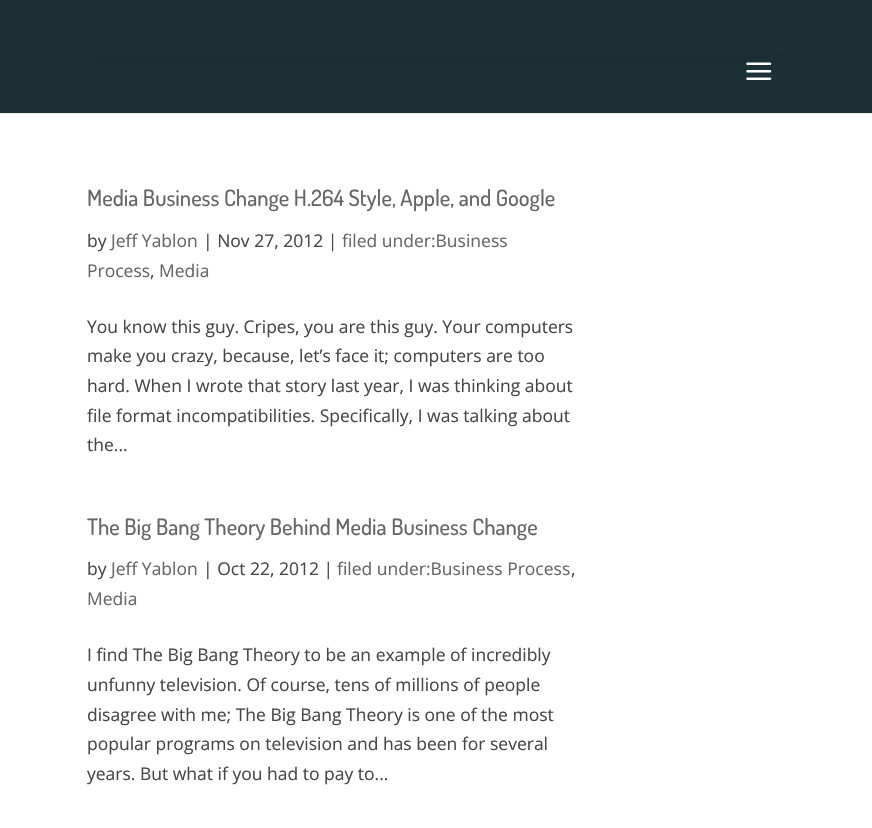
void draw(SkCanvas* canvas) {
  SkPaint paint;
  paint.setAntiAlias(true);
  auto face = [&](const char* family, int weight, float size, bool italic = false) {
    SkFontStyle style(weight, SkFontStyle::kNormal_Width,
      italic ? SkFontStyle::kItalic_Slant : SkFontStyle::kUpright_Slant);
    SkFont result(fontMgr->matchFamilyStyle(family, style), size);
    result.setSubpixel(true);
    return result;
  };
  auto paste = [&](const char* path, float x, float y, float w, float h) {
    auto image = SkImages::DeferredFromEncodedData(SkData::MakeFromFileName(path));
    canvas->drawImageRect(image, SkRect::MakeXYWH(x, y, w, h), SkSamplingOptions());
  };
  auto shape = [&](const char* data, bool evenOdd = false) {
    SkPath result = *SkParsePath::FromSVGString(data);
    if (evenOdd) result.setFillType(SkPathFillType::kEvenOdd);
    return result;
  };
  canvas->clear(0xffffffff);
  paint.setColor(0xffe6e6e6);
  canvas->drawPath(shape("M0 112V114H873V1H872V112Z"), paint);
  paint.setColor(0xff1d3036);
  canvas->drawRect(SkRect::MakeXYWH(0, 0, 872, 113), paint);
  paint.setColor(0xff1c2e33);
  canvas->drawRoundRect(SkRect::MakeXYWH(94, 50, 691, 13), 6.5f, 6.5f, paint);
  paste("img/1.png", 746, 62, 26, 18);
  auto f0 = face("Dosis", 500, 22.5f);
  paint.setColor(0xff666666);
  canvas->drawString("Media Business Change H.264 Style, Apple, and Google", 87, 206, f0, paint);
  auto f1 = face("Open Sans", 400, 17.5f);
  paint.setColor(0xff464646);
  canvas->drawString("by", 87, 247, f1, paint);
  paint.setColor(0xff666666);
  canvas->drawString("Jeff Yablon", 111, 247, f1, paint);
  paint.setColor(0xff464646);
  canvas->drawString("| Nov 27, 2012 |", 203, 247, f1, paint);
  paint.setColor(0xff666666);
  canvas->drawString("filed under:Business", 342, 247, f1, paint);
  canvas->drawString("Process", 87, 277, f1, paint);
  paint.setColor(0xff464646);
  canvas->drawString(",", 150, 277, f1, paint);
  paint.setColor(0xff666666);
  canvas->drawString("Media", 159, 277, f1, paint);
  paint.setColor(0xff464646);
  {
    const struct { const char* s; float x, y; } items[] = {
      {"You know this guy. Cripes, you are this guy. Your computers", 87, 333},
      {"make you crazy, because, let’s face it; computers are too", 87, 362},
      {"hard. When I wrote that story last year, I was thinking about", 87, 392},
      {"file format incompatibilities. Specifically, I was talking about", 87, 422},
      {"the...", 87, 451},
    };
    for (auto [s, x, y] : items) {
      canvas->drawString(s, x, y, f1, paint);
    }
  }
  paint.setColor(0xff666666);
  canvas->drawString("The Big Bang Theory Behind Media Business Change", 87, 535, f0, paint);
  paint.setColor(0xff464646);
  canvas->drawString("by", 87, 575, f1, paint);
  paint.setColor(0xff666666);
  canvas->drawString("Jeff Yablon", 111, 575, f1, paint);
  paint.setColor(0xff464646);
  canvas->drawString("| Oct 22, 2012 |", 203, 575, f1, paint);
  paint.setColor(0xff666666);
  canvas->drawString("filed under:Business Process", 337, 575, f1, paint);
  paint.setColor(0xff464646);
  canvas->drawString(",", 571, 575, f1, paint);
  paint.setColor(0xff666666);
  canvas->drawString("Media", 87, 605, f1, paint);
  paint.setColor(0xff464646);
  {
    const struct { const char* s; float x, y; } items[] = {
      {"I find The Big Bang Theory to be an example of incredibly", 87, 661},
      {"unfunny television. Of course, tens of millions of people", 87, 691},
      {"disagree with me; The Big Bang Theory is one of the most", 87, 721},
      {"popular programs on television and has been for several", 87, 750},
      {"years. But what if you had to pay to...", 87, 780},
    };
    for (auto [s, x, y] : items) {
      canvas->drawString(s, x, y, f1, paint);
    }
  }
}
